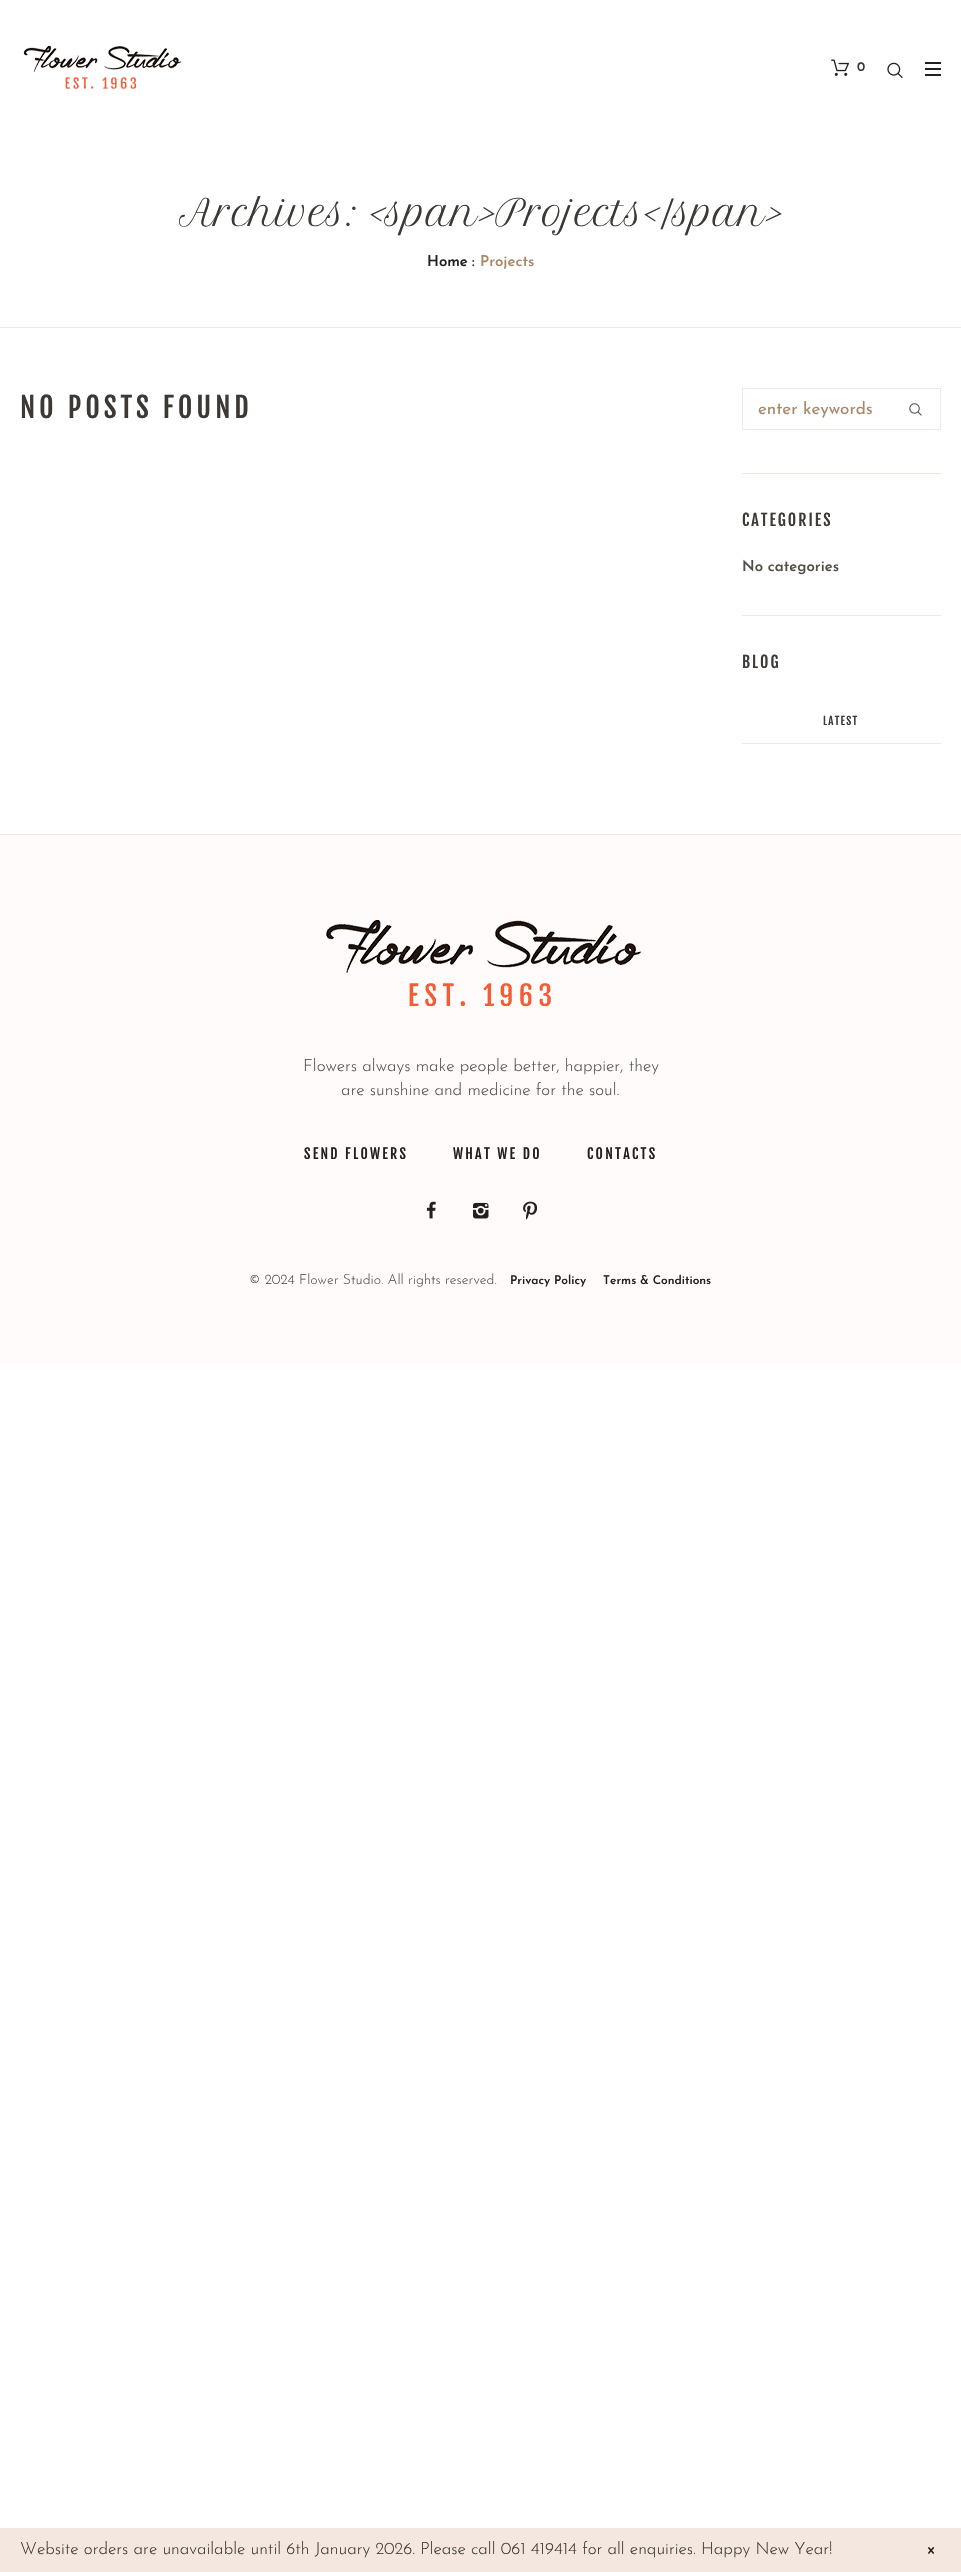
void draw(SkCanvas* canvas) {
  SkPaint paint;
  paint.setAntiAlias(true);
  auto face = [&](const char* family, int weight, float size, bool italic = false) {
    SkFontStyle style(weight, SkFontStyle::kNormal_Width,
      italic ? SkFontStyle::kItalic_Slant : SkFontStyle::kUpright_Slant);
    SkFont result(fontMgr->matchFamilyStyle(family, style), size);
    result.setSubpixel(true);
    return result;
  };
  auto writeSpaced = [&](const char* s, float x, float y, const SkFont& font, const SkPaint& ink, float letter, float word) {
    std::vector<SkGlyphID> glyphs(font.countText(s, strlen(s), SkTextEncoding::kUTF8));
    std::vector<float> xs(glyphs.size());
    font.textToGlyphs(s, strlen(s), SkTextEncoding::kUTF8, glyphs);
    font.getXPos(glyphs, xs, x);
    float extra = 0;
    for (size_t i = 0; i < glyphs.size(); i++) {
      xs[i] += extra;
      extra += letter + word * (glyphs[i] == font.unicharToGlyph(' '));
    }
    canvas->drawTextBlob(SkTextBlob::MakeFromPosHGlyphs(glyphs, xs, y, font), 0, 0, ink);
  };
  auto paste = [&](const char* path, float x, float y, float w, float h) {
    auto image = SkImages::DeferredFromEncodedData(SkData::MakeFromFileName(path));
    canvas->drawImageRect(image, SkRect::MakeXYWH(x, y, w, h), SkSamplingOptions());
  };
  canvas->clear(0xffffffff);
  paste("img/1.png", 23, 45, 159, 44);
  paste("img/2.png", 831, 59, 18, 17);
  paste("img/3.png", 887, 62, 16, 16);
  {
    const struct { float x, y, w, h; SkColor color; } items[] = {
      {925, 62, 16, 2, 0xff211f1f},
      {925, 68, 16, 2, 0xff211f1f},
      {925, 74, 16, 2, 0xff211f1f},
      {0, 327, 961, 1, 0xfff4e7e0},
      {742, 473, 199, 1, 0xfff4e7e0},
    };
    for (auto [x, y, w, h, color] : items) {
      paint.setColor(color);
      canvas->drawRect(SkRect::MakeXYWH(x, y, w, h), paint);
    }
  }
  paint.setStroke(true);
  paint.setStrokeWidth(1);
  canvas->drawRect(SkRect::MakeXYWH(742.5f, 388.5f, 198, 41), paint);
  paste("img/4.png", 909, 403, 13, 13);
  paint.setStroke(false);
  {
    const struct { float x, y, w, h; SkColor color; } items[] = {
      {742, 615, 199, 1, 0xfff4e7e0},
      {742, 743, 199, 1, 0xfff4e7e0},
      {0, 835, 961, 529, 0xfffefbfa},
      {0, 834, 961, 1, 0xfff4e7e0},
    };
    for (auto [x, y, w, h, color] : items) {
      paint.setColor(color);
      canvas->drawRect(SkRect::MakeXYWH(x, y, w, h), paint);
    }
  }
  paste("img/5.png", 326, 920, 315, 86);
  paste("img/6.png", 426, 1201, 10, 18);
  paste("img/7.png", 473, 1202, 16, 17);
  paste("img/8.png", 523, 1201, 15, 19);
  canvas->drawRect(SkRect::MakeXYWH(0, 2528, 961, 44), paint);
  paste("img/9.png", 928, 2547, 7, 7);
  auto f0 = face("Josefin Sans", 600, 13);
  paint.setColor(0xff3c3834);
  canvas->drawString("0", 857, 71, f0, paint);
  auto f1 = face("Petit Formal Script", 400, 36);
  canvas->drawString("Archives: <span>Projects</span>", 179, 226, f1, paint);
  auto f2 = face("Josefin Sans", 600, 15);
  paint.setColor(0xff211f1f);
  canvas->drawString("Home", 427, 266, f2, paint);
  paint.setColor(0xff3c3834);
  canvas->drawString(":", 472, 266, f2, paint);
  paint.setColor(0xffa7896a);
  canvas->drawString("Projects", 480, 266, f2, paint);
  auto f3 = face("Fjalla One", 400, 28);
  paint.setColor(0xff3c3834);
  writeSpaced("NO POSTS FOUND", 20, 418, f3, paint, 3.9f, 0);
  canvas->save();
  canvas->clipRect(SkRect::MakeXYWH(758, 401, 136, 17));
  auto f4 = face("Josefin Sans", 400, 17);
  paint.setColor(0xffa7896a);
  canvas->drawString("enter keywords", 758, 414, f4, paint);
  canvas->restore();
  auto f5 = face("Fjalla One", 400, 16);
  paint.setColor(0xff3c3834);
  writeSpaced("CATEGORIES", 742, 526, f5, paint, 2, 0);
  paint.setColor(0xff544e48);
  canvas->drawString("No categories", 742, 571, f2, paint);
  paint.setColor(0xff3c3834);
  writeSpaced("BLOG", 742, 668, f5, paint, 2, 0);
  auto f6 = face("Fjalla One", 400, 11);
  writeSpaced("LATEST", 823, 725, f6, paint, 1.25f, 0);
  auto f7 = face("Josefin Sans", 300, 17);
  paint.setColor(0xff544e48);
  canvas->drawString("Flowers always make people better, happier, they", 303, 1071, f7, paint);
  canvas->drawString("are sunshine and medicine for the soul.", 341, 1095, f7, paint);
  auto f8 = face("Fjalla One", 400, 14);
  paint.setColor(0xff211f1f);
  {
    const struct { const char* s; float x, y; } items[] = {
      {"SEND FLOWERS", 304, 1159},
      {"WHAT WE DO", 453, 1159},
      {"CONTACTS", 587, 1159},
    };
    for (auto [s, x, y] : items) {
      writeSpaced(s, x, y, f8, paint, 2.25f, 0);
    }
  }
  auto f9 = face("Josefin Sans", 300, 14);
  paint.setColor(0xff544e48);
  canvas->drawString("© 2024 Flower Studio. All rights reserved.", 249, 1284, f9, paint);
  auto f10 = face("Josefin Sans", 600, 12);
  paint.setColor(0xff211f1f);
  canvas->drawString("Privacy Policy", 510, 1284, f10, paint);
  canvas->drawString("Terms & Conditions", 603, 1284, f10, paint);
  paint.setColor(0xff3c3834);
  canvas->drawString("Website orders are unavailable until 6th January 2026. Please call 061 419414 for all enquiries. Happy New Year!", 20, 2554, f7, paint);
}
